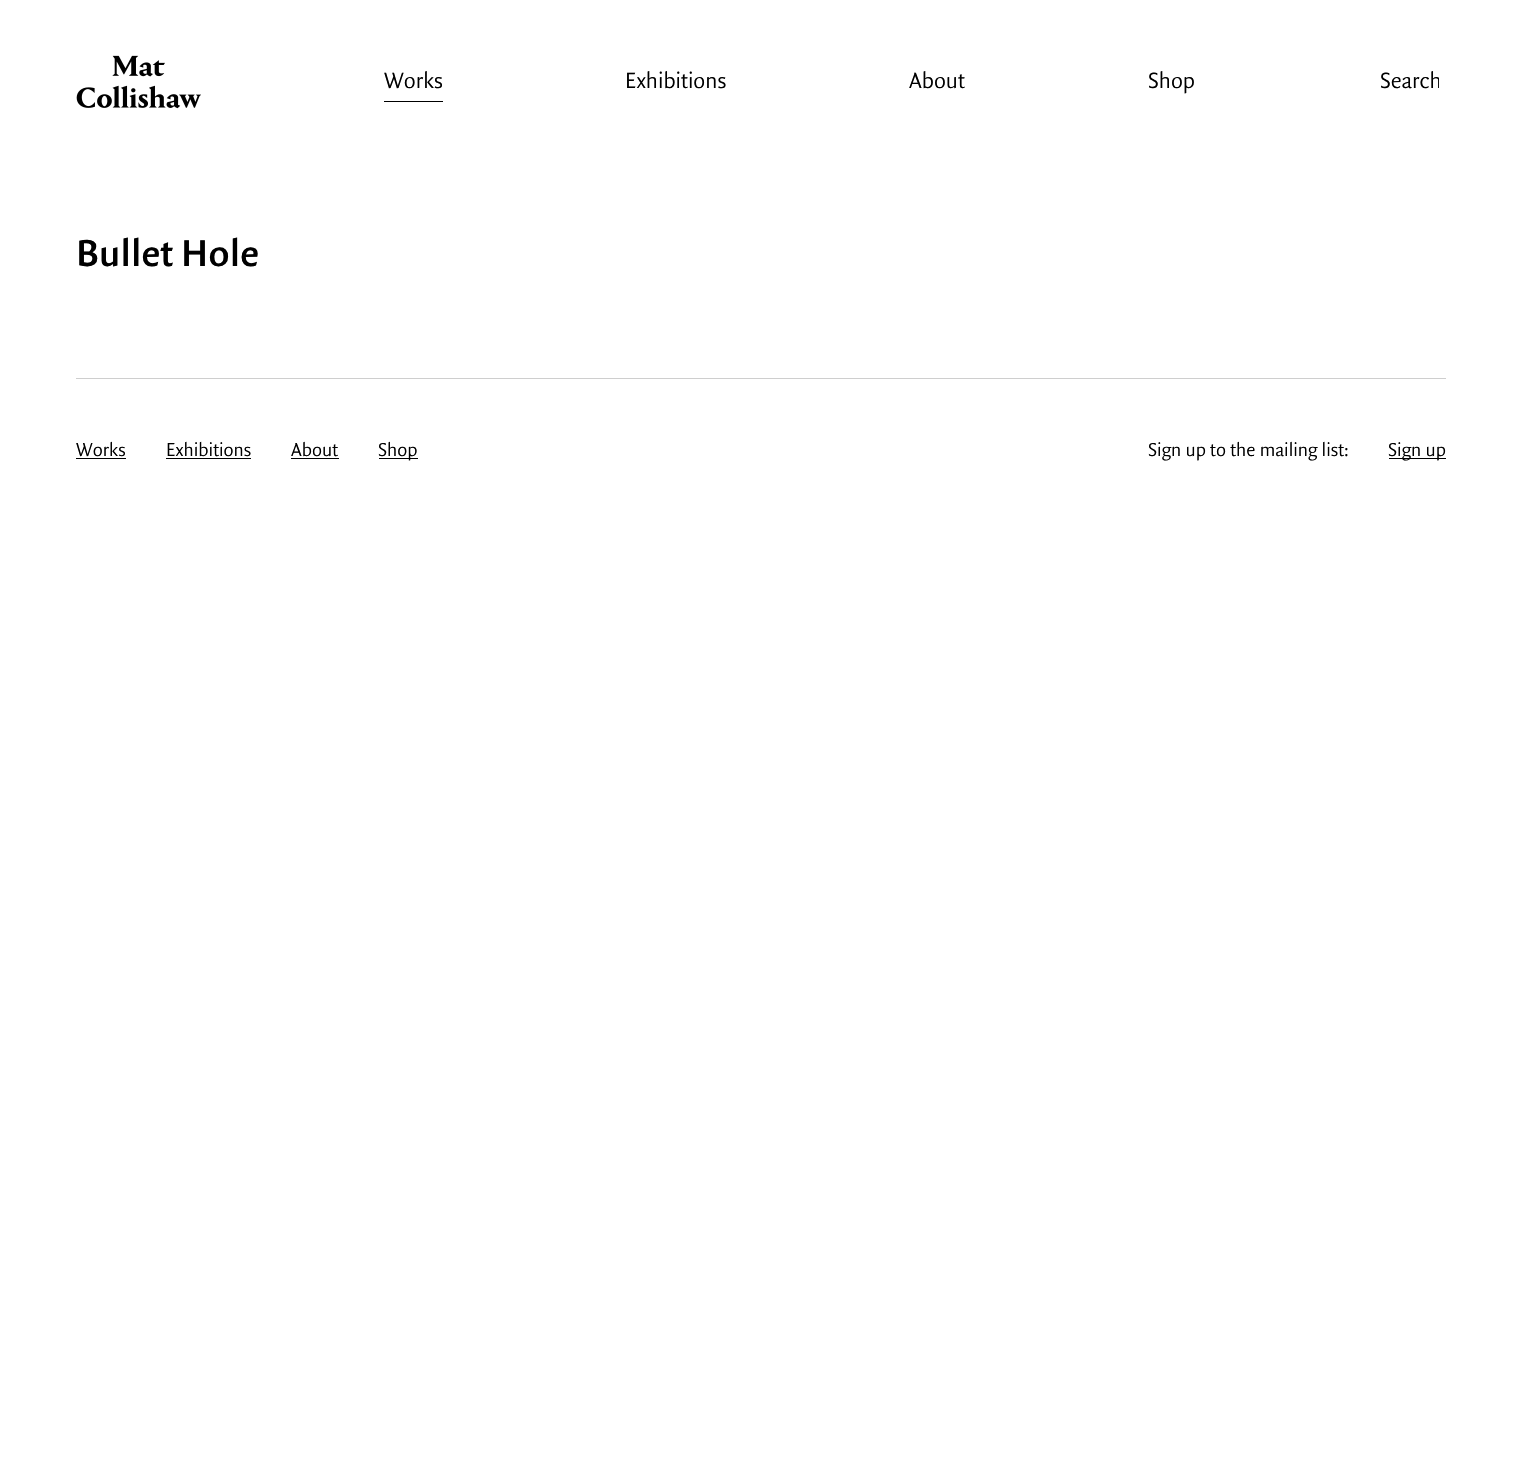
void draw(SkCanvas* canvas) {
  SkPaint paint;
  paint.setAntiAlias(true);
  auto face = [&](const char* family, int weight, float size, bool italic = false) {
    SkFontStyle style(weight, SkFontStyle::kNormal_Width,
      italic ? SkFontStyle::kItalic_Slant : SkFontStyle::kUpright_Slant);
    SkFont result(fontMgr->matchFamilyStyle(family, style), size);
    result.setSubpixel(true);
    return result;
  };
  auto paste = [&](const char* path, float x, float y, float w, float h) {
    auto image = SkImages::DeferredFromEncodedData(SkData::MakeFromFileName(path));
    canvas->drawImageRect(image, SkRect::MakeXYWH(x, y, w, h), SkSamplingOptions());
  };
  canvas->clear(0xffffffff);
  paste("img/1.png", 76, 55, 125, 54);
  {
    const struct { float x, y, w, h; SkColor color; } items[] = {
      {384, 101, 59, 1, 0xff000000},
      {76, 378, 1370, 1, 0xffcecece},
      {76, 458, 50, 1, 0xff000000},
      {166, 458, 85, 1, 0xff000000},
      {291, 458, 48, 1, 0xff000000},
      {379, 458, 39, 1, 0xff000000},
      {1389, 458, 57, 1, 0xff000000},
    };
    for (auto [x, y, w, h, color] : items) {
      paint.setColor(color);
      canvas->drawRect(SkRect::MakeXYWH(x, y, w, h), paint);
    }
  }
  auto f0 = face("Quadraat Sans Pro", 300, 23.75f);
  {
    const struct { const char* s; float x, y; } items[] = {
      {"Works", 384, 88},
      {"Exhibitions", 625, 88},
      {"About", 909, 88},
      {"Shop", 1148, 88},
    };
    for (auto [s, x, y] : items) {
      canvas->drawString(s, x, y, f0, paint);
    }
  }
  canvas->save();
  canvas->clipRect(SkRect::MakeXYWH(1380, 71, 59, 24));
  canvas->drawString("Search", 1380, 88, f0, paint);
  canvas->restore();
  auto f1 = face("Quadraat Sans Pro", 600, 40);
  canvas->drawString("Bullet Hole", 76, 266, f1, paint);
  auto f2 = face("Quadraat Sans Pro", 300, 20);
  {
    const struct { const char* s; float x, y; } items[] = {
      {"Works", 76, 456},
      {"Exhibitions", 166, 456},
      {"About", 291, 456},
      {"Shop", 378, 456},
      {"Sign up to the mailing list:", 1148, 456},
      {"Sign up", 1388, 456},
    };
    for (auto [s, x, y] : items) {
      canvas->drawString(s, x, y, f2, paint);
    }
  }
}
